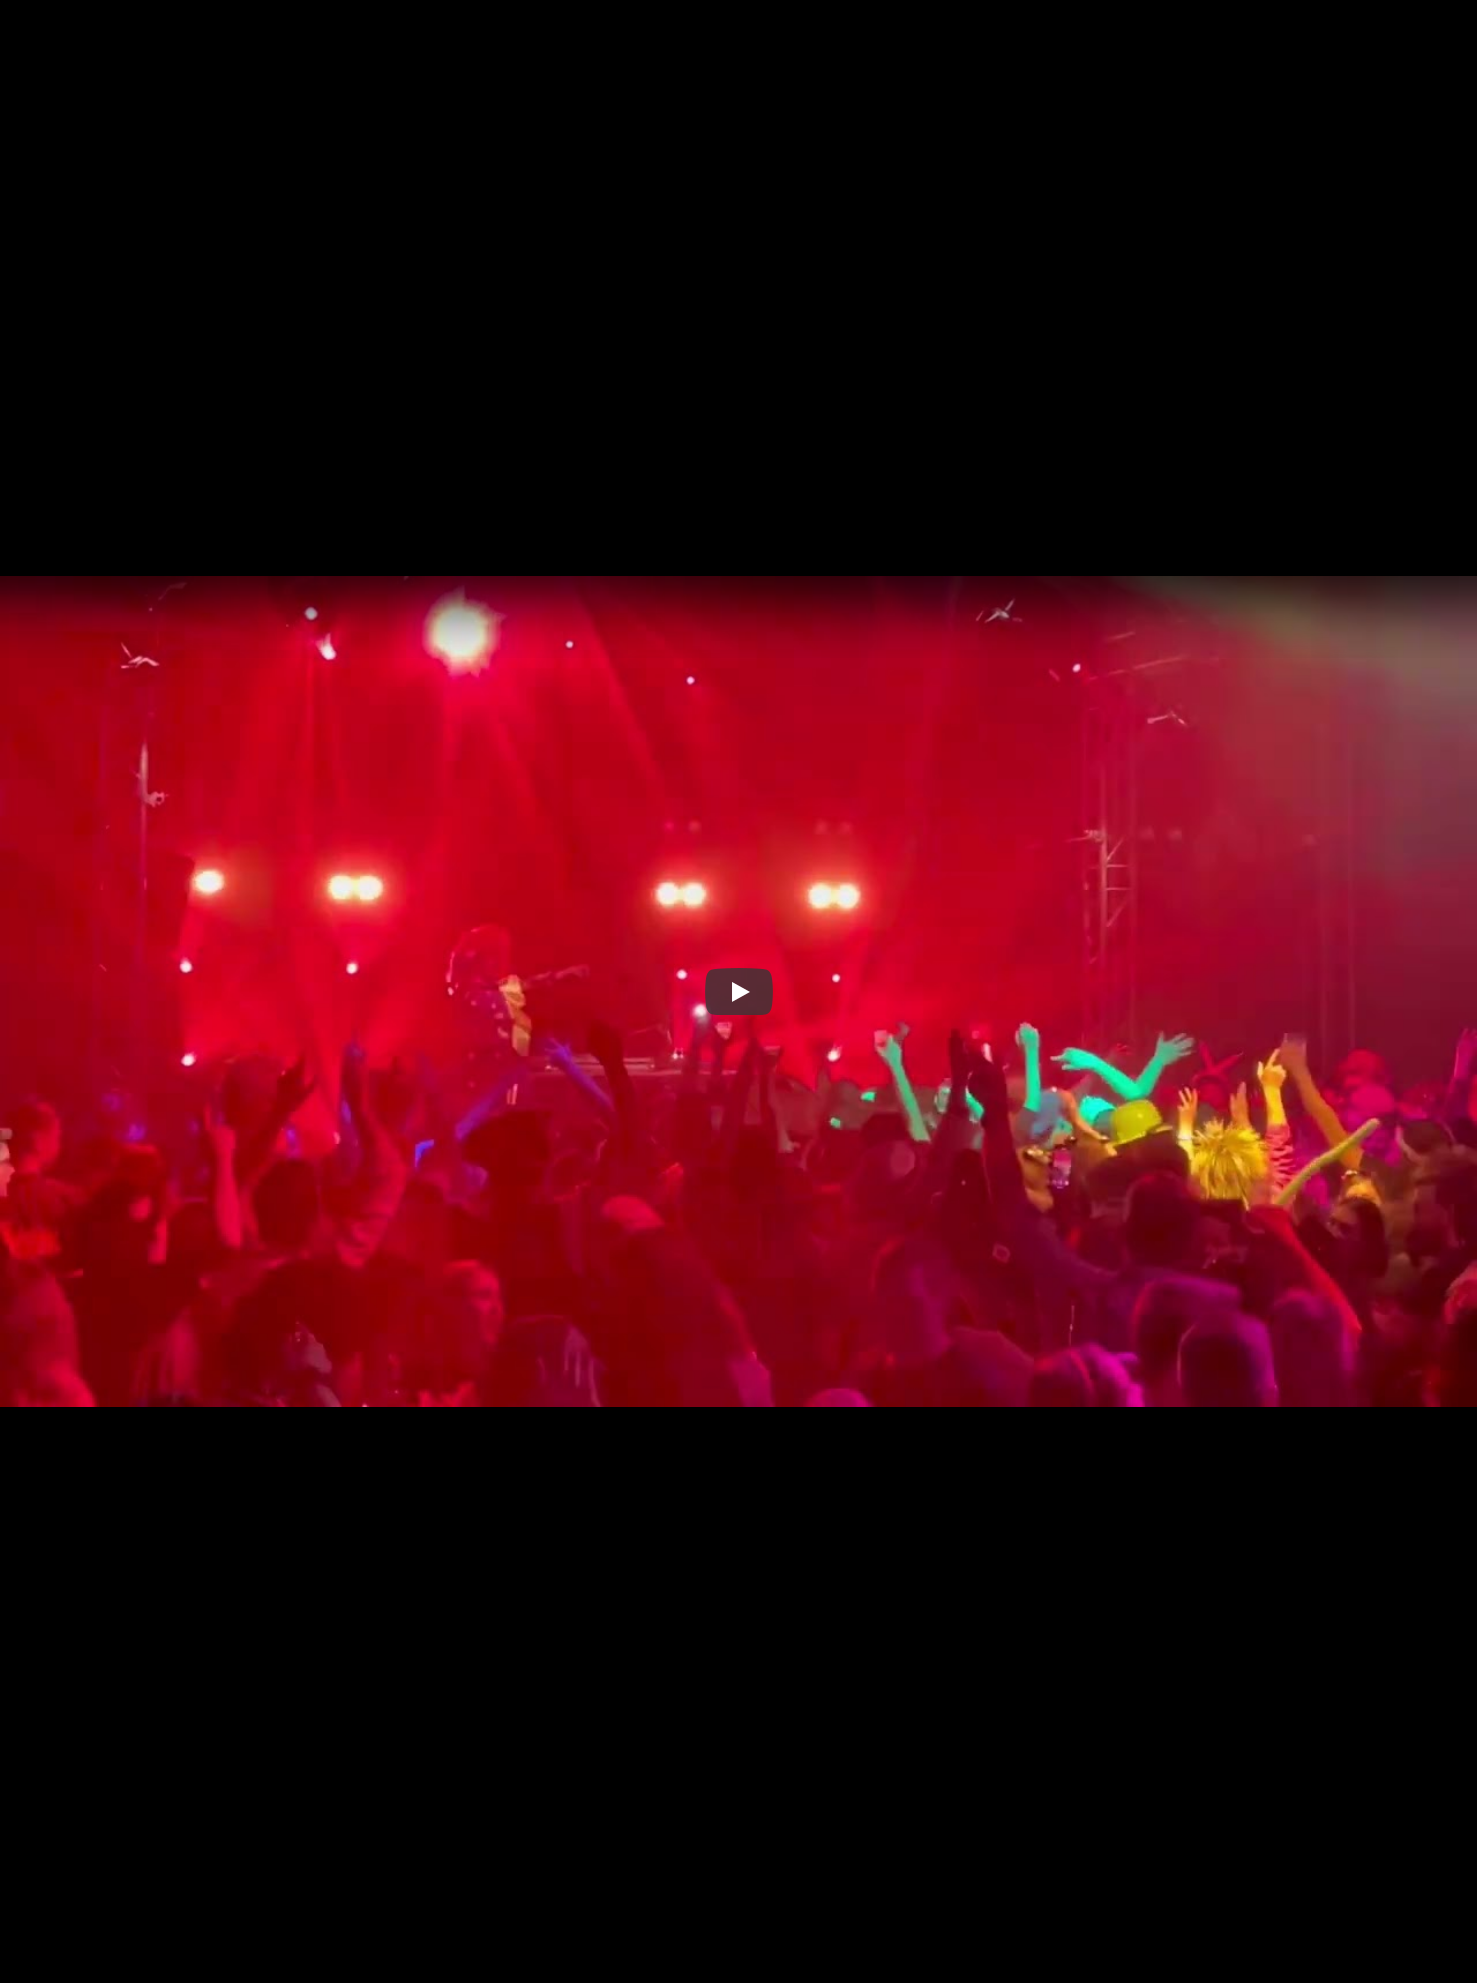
void draw(SkCanvas* canvas) {
  SkPaint paint;
  paint.setAntiAlias(true);
  auto paste = [&](const char* path, float x, float y, float w, float h) {
    auto image = SkImages::DeferredFromEncodedData(SkData::MakeFromFileName(path));
    canvas->drawImageRect(image, SkRect::MakeXYWH(x, y, w, h), SkSamplingOptions());
  };
  canvas->clear(0xff000000);
  paste("img/1.png", 0, 576, 1477, 831);
  paste("img/2.png", 0, 576, 1477, 82);
  paste("img/3.png", 705, 968, 68, 47);
}
